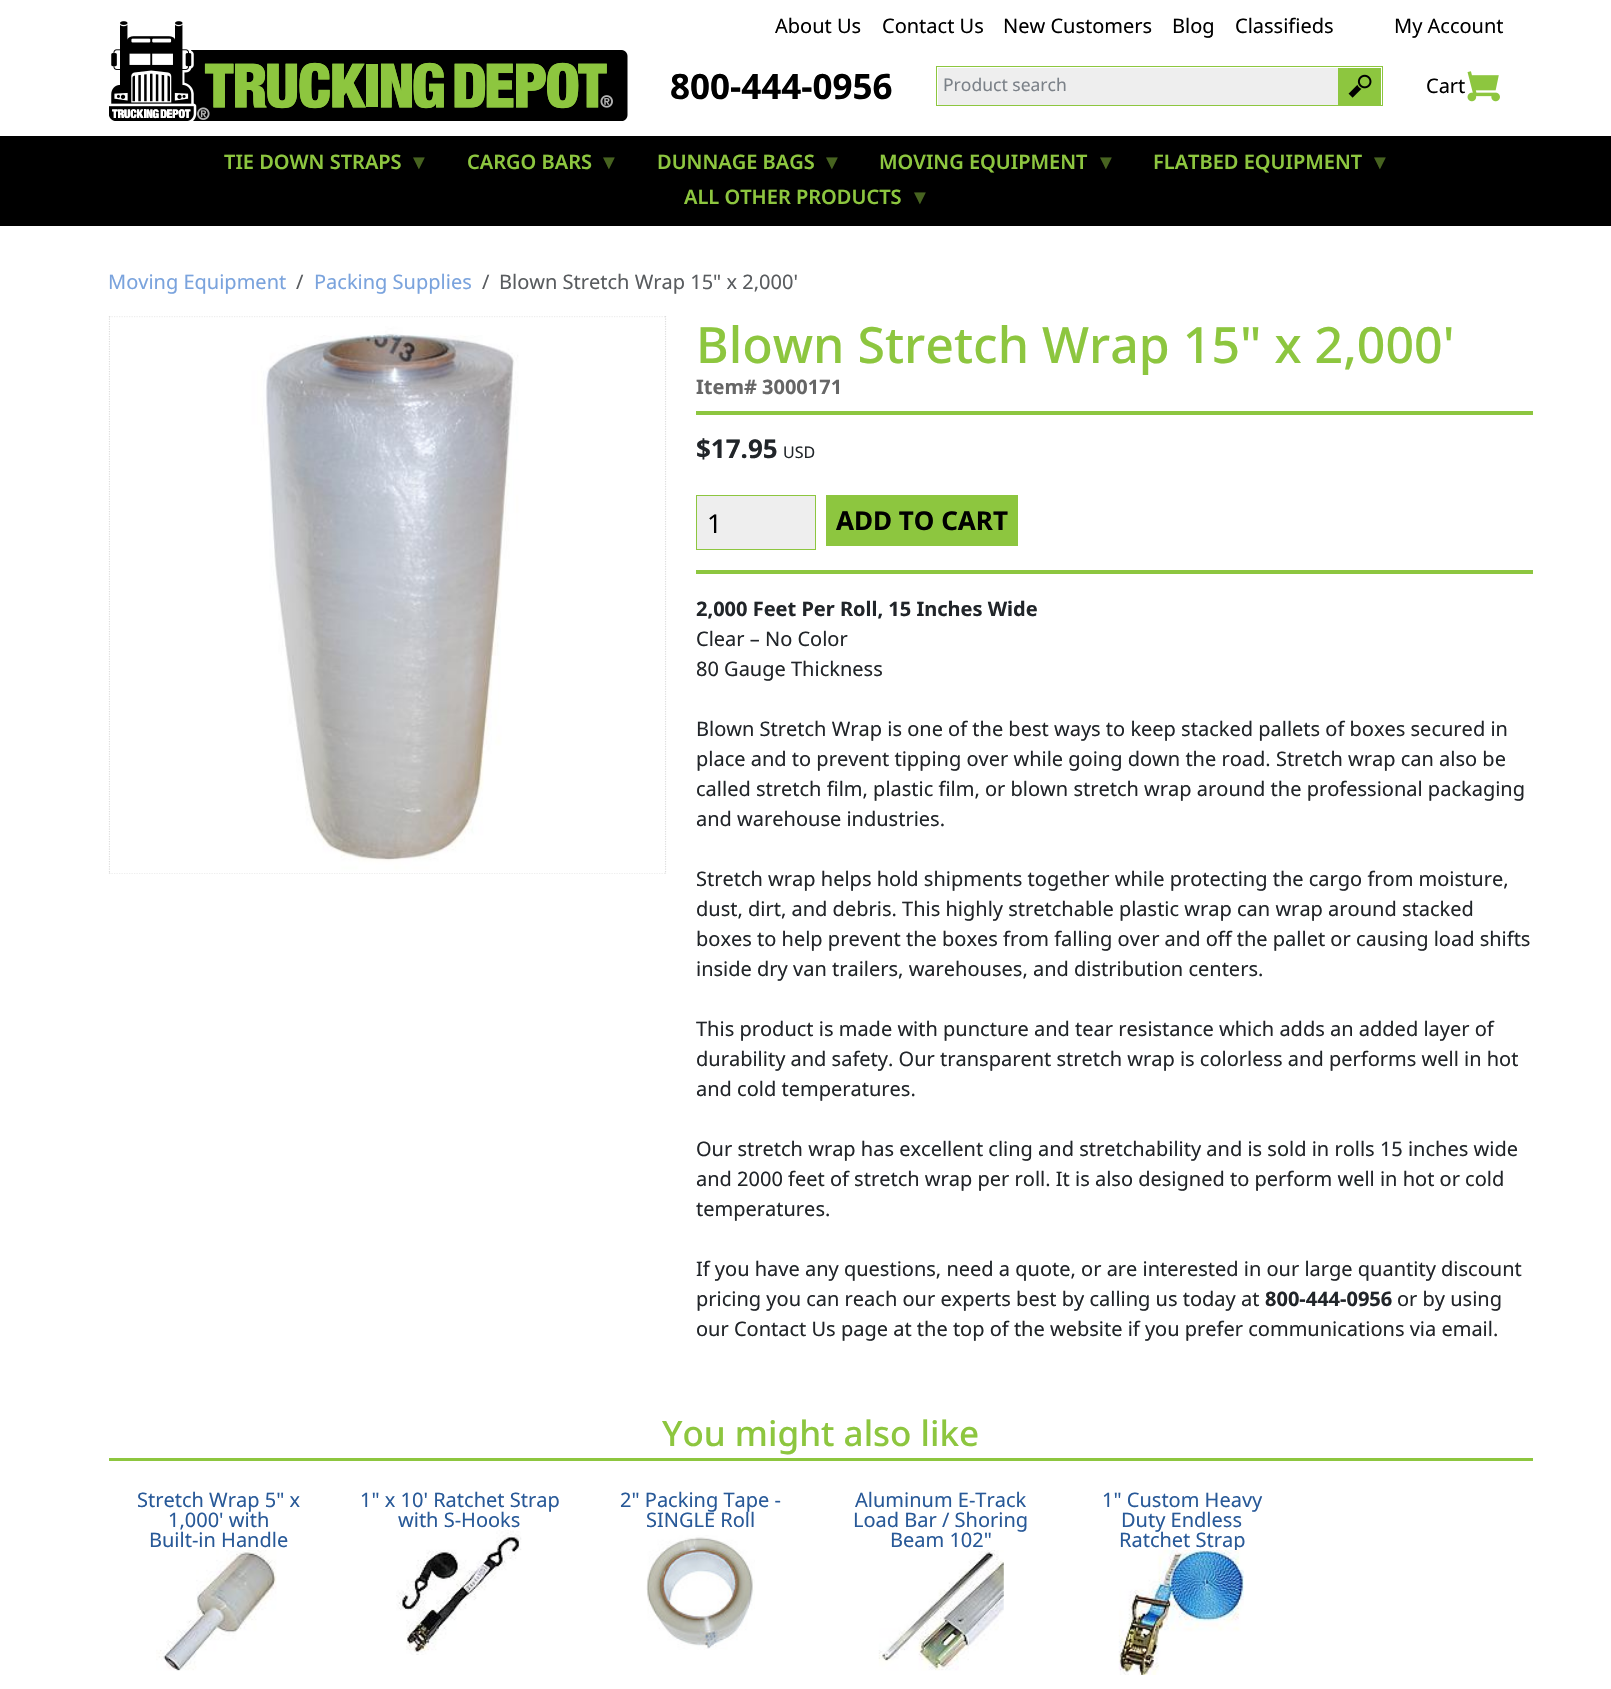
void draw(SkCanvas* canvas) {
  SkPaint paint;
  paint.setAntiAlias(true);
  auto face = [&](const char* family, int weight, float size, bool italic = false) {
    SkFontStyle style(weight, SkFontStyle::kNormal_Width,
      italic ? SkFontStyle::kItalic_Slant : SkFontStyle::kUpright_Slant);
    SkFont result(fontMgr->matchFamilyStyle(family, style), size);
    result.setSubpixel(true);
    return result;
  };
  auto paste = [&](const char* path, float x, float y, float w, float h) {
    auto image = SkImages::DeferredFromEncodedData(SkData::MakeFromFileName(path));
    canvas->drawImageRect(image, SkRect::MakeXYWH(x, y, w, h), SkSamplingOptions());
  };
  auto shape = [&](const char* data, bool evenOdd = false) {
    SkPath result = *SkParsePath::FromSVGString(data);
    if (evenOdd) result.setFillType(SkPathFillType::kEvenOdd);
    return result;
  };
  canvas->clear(0xffffffff);
  paint.setColor(0xff000000);
  canvas->drawRect(SkRect::MakeXYWH(0, 136, 1611, 90), paint);
  paste("img/1.png", 109, 21, 519, 100);
  paint.setStroke(true);
  paint.setStrokeWidth(1);
  paint.setColor(0xff8dc63f);
  canvas->drawRect(SkRect::MakeXYWH(936.5f, 66.5f, 446, 39), paint);
  paint.setStroke(false);
  paint.setColor(0xffeeeeee);
  canvas->drawRect(SkRect::MakeXYWH(938, 68, 400, 37), paint);
  paint.setColor(0xff8dc63f);
  canvas->drawRect(SkRect::MakeXYWH(1338, 68, 43, 37), paint);
  paste("img/2.png", 1348, 74, 24, 24);
  paste("img/3.png", 1467, 71, 33, 31);
  paint.setStroke(true);
  paint.setStrokeWidth(1.2f);
  paint.setColor(0xffdddddd);
  paint.setPathEffect(SkDashPathEffect::Make({{1.25f, 1.25f}}, 0));
  canvas->drawPath(shape("M109 317H666"), paint);
  paint.setPathEffect(nullptr);
  paint.setPathEffect(SkDashPathEffect::Make({{1.25f, 1.25f}}, 0));
  canvas->drawPath(shape("M665.5 316V874"), paint);
  paint.setPathEffect(nullptr);
  paint.setPathEffect(SkDashPathEffect::Make({{1.25f, 1.25f}}, 0));
  canvas->drawPath(shape("M109 873H666"), paint);
  paint.setPathEffect(nullptr);
  paint.setPathEffect(SkDashPathEffect::Make({{1.25f, 1.25f}}, 0));
  canvas->drawPath(shape("M109.5 316V874"), paint);
  paint.setPathEffect(nullptr);
  paste("img/4.png", 110, 317, 555, 556);
  paint.setStroke(false);
  paint.setColor(0xff8dc63f);
  canvas->drawRect(SkRect::MakeXYWH(696, 411, 837, 4), paint);
  canvas->drawRect(SkRect::MakeXYWH(696, 570, 837, 4), paint);
  paint.setColor(0xffeeeeee);
  canvas->drawRect(SkRect::MakeXYWH(696.5f, 495.5f, 119, 54), paint);
  paint.setStroke(true);
  paint.setStrokeWidth(1);
  paint.setColor(0xff8dc63f);
  canvas->drawRect(SkRect::MakeXYWH(696.5f, 495.5f, 119, 54), paint);
  paint.setStroke(false);
  canvas->drawRect(SkRect::MakeXYWH(826, 495, 192, 51), paint);
  canvas->drawRect(SkRect::MakeXYWH(109, 1458, 1424, 3), paint);
  paste("img/5.png", 156, 1550, 121, 121);
  paste("img/6.png", 396, 1530, 126, 125);
  paste("img/7.png", 646, 1535, 109, 115);
  paste("img/8.png", 878, 1550, 126, 121);
  auto f0 = face("Noto Sans", 400, 20);
  paint.setColor(0xff000000);
  {
    const struct { const char* s; float x, y; } items[] = {
      {"About Us", 775, 33},
      {"Contact Us", 882, 33},
      {"New Customers", 1003, 33},
      {"Blog", 1172, 33},
      {"Classifieds", 1235, 33},
      {"My Account", 1394, 33},
    };
    for (auto [s, x, y] : items) {
      canvas->drawString(s, x, y, f0, paint);
    }
  }
  auto f1 = face("Noto Sans", 600, 20);
  paint.setColor(0xff8dc63f);
  canvas->drawString("TIE DOWN STRAPS", 224, 169, f1, paint);
  auto f2 = face("Liberation Sans", 700, 20);
  paint.setColor(0xff476320);
  canvas->drawString("▼", 409, 169, f2, paint);
  paint.setColor(0xff8dc63f);
  canvas->drawString("CARGO BARS", 467, 169, f1, paint);
  paint.setColor(0xff476320);
  canvas->drawString("▼", 599, 169, f2, paint);
  paint.setColor(0xff8dc63f);
  canvas->drawString("DUNNAGE BAGS", 657, 169, f1, paint);
  paint.setColor(0xff476320);
  canvas->drawString("▼", 822, 169, f2, paint);
  paint.setColor(0xff8dc63f);
  canvas->drawString("MOVING EQUIPMENT", 879, 169, f1, paint);
  paint.setColor(0xff476320);
  canvas->drawString("▼", 1096, 169, f2, paint);
  paint.setColor(0xff8dc63f);
  canvas->drawString("FLATBED EQUIPMENT", 1153, 169, f1, paint);
  paint.setColor(0xff476320);
  canvas->drawString("▼", 1370, 169, f2, paint);
  paint.setColor(0xff8dc63f);
  canvas->drawString("ALL OTHER PRODUCTS", 684, 204, f1, paint);
  paint.setColor(0xff476320);
  canvas->drawString("▼", 910, 204, f2, paint);
  auto f3 = face("Noto Sans", 700, 35);
  paint.setColor(0xff000000);
  canvas->drawString("800-444-0956", 670, 99, f3, paint);
  auto f4 = face("Noto Sans", 400, 17.5f);
  paint.setColor(0xff7b8188);
  canvas->drawString("Product search", 943, 91, f4, paint);
  paint.setColor(0xff000000);
  canvas->drawString("Cart", 1426, 93, f0, paint);
  paint.setColor(0xff7aa3dd);
  canvas->drawString("Moving Equipment", 108, 289, f0, paint);
  paint.setColor(0xff595c5f);
  canvas->drawString("/", 296, 289, f0, paint);
  paint.setColor(0xff7aa3dd);
  canvas->drawString("Packing Supplies", 314, 289, f0, paint);
  paint.setColor(0xff595c5f);
  canvas->drawString("/", 482, 289, f0, paint);
  canvas->drawString("Blown Stretch Wrap 15\" x 2,000'", 499, 289, f0, paint);
  auto f5 = face("Noto Sans", 500, 50);
  paint.setColor(0xff8dc63f);
  canvas->drawString("Blown Stretch Wrap 15\" x 2,000'", 696, 363, f5, paint);
  auto f6 = face("Noto Sans", 700, 20);
  paint.setColor(0xff666666);
  canvas->drawString("Item# 3000171", 696, 394, f6, paint);
  auto f7 = face("Noto Sans", 700, 26);
  paint.setColor(0xff212529);
  canvas->drawString("$17.95", 696, 458, f7, paint);
  auto f8 = face("Noto Sans", 400, 16);
  canvas->drawString("USD", 783, 458, f8, paint);
  auto f9 = face("Noto Sans", 400, 26);
  paint.setColor(0xff000000);
  canvas->drawString("1", 707, 533, f9, paint);
  canvas->drawString("ADD TO CART", 836, 530, f7, paint);
  paint.setColor(0xff212529);
  canvas->drawString("2,000 Feet Per Roll, 15 Inches Wide", 696, 616, f6, paint);
  {
    const struct { const char* s; float x, y; } items[] = {
      {"Clear – No Color", 696, 646},
      {"80 Gauge Thickness", 696, 676},
      {"Blown Stretch Wrap is one of the best ways to keep stacked pallets of boxes secured in", 696, 736},
      {"place and to prevent tipping over while going down the road. Stretch wrap can also be", 696, 766},
      {"called stretch film, plastic film, or blown stretch wrap around the professional packaging", 696, 796},
      {"and warehouse industries.", 696, 826},
      {"Stretch wrap helps hold shipments together while protecting the cargo from moisture,", 696, 886},
      {"dust, dirt, and debris. This highly stretchable plastic wrap can wrap around stacked", 696, 916},
      {"boxes to help prevent the boxes from falling over and off the pallet or causing load shifts", 696, 946},
      {"inside dry van trailers, warehouses, and distribution centers.", 696, 976},
      {"This product is made with puncture and tear resistance which adds an added layer of", 696, 1036},
      {"durability and safety. Our transparent stretch wrap is colorless and performs well in hot", 696, 1066},
      {"and cold temperatures.", 696, 1096},
      {"Our stretch wrap has excellent cling and stretchability and is sold in rolls 15 inches wide", 696, 1156},
      {"and 2000 feet of stretch wrap per roll. It is also designed to perform well in hot or cold", 696, 1186},
      {"temperatures.", 696, 1216},
      {"If you have any questions, need a quote, or are interested in our large quantity discount", 696, 1276},
      {"pricing you can reach our experts best by calling us today at", 696, 1306},
    };
    for (auto [s, x, y] : items) {
      canvas->drawString(s, x, y, f0, paint);
    }
  }
  canvas->drawString("800-444-0956", 1265, 1306, f6, paint);
  canvas->drawString("or by using", 1397, 1306, f0, paint);
  canvas->drawString("our Contact Us page at the top of the website if you prefer communications via email.", 696, 1336, f0, paint);
  auto f10 = face("Noto Sans", 500, 35);
  paint.setColor(0xff8dc63f);
  canvas->drawString("You might also like", 662, 1446, f10, paint);
  paint.setColor(0xff285998);
  {
    const struct { const char* s; float x, y; } items[] = {
      {"Stretch Wrap 5\" x", 137, 1507},
      {"1,000' with", 168, 1527},
      {"Built-in Handle", 149, 1547},
      {"1\" x 10' Ratchet Strap", 360, 1507},
      {"with S-Hooks", 398, 1527},
      {"2\" Packing Tape -", 620, 1507},
      {"SINGLE Roll", 646, 1527},
      {"Aluminum E-Track", 855, 1507},
      {"Load Bar / Shoring", 853, 1527},
      {"Beam 102\"", 890, 1547},
      {"1\" Custom Heavy", 1102, 1507},
      {"Duty Endless", 1121, 1527},
      {"Ratchet Strap", 1119, 1547},
    };
    for (auto [s, x, y] : items) {
      canvas->drawString(s, x, y, f0, paint);
    }
  }
  paste("img/9.png", 1118, 1550, 126, 125);
}
